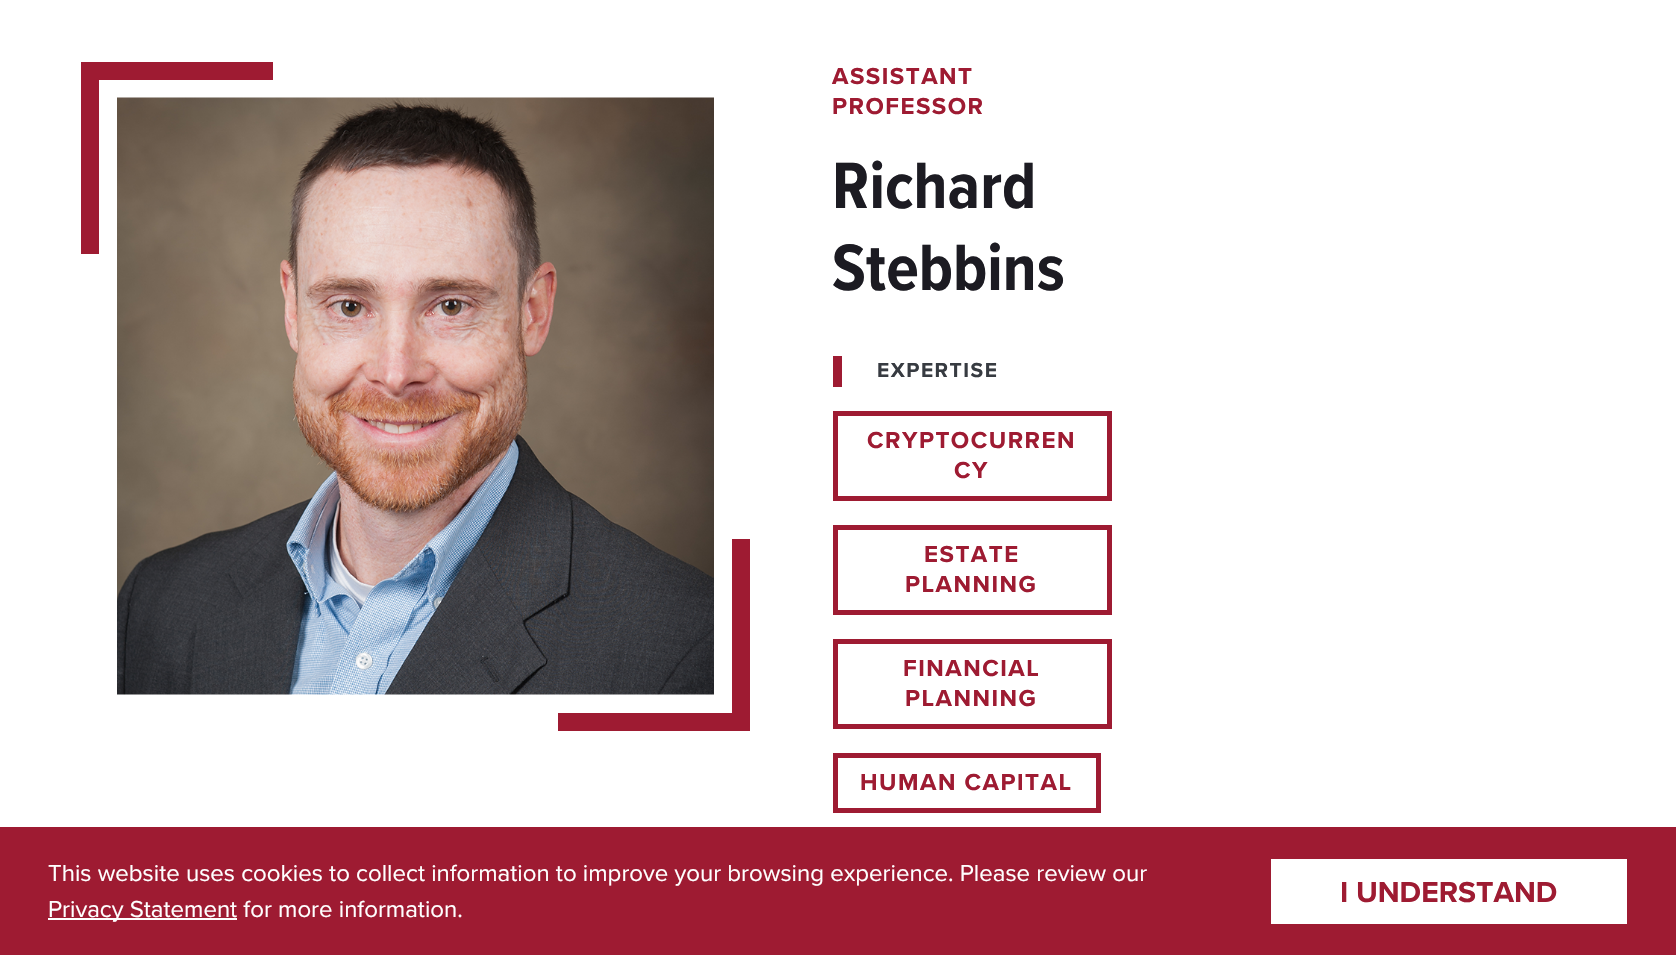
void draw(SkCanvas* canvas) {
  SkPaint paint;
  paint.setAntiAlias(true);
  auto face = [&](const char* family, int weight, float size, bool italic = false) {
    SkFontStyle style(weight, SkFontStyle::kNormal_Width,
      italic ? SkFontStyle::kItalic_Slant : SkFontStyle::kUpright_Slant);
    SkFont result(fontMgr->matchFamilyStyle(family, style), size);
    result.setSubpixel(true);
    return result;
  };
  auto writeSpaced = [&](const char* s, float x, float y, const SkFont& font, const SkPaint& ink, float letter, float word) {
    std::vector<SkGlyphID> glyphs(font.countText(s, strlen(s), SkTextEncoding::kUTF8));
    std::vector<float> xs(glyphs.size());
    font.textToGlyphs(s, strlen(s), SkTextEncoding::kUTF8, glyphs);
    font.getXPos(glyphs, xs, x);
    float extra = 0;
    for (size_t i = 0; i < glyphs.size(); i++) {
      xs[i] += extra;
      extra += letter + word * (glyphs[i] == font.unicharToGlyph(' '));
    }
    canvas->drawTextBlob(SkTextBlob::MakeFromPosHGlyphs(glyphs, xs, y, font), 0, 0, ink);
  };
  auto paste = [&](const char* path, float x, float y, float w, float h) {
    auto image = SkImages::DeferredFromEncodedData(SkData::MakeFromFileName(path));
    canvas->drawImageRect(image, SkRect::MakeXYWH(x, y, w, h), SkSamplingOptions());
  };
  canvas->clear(0xffffffff);
  paint.setColor(0xff9e1b32);
  canvas->drawRect(SkRect::MakeXYWH(99, 62, 174, 18), paint);
  canvas->drawRect(SkRect::MakeXYWH(81, 62, 18, 192), paint);
  paste("img/1.png", 117, 97, 597, 598);
  {
    const struct { float x, y, w, h; SkColor color; } items[] = {
      {732, 539, 18, 174, 0xff9e1b32},
      {558, 713, 192, 18, 0xff9e1b32},
      {833, 356, 9, 31, 0xff9e1b32},
    };
    for (auto [x, y, w, h, color] : items) {
      paint.setColor(color);
      canvas->drawRect(SkRect::MakeXYWH(x, y, w, h), paint);
    }
  }
  paint.setStroke(true);
  paint.setStrokeWidth(5);
  canvas->drawRect(SkRect::MakeXYWH(835.5f, 413.5f, 274, 85), paint);
  canvas->drawRect(SkRect::MakeXYWH(835.5f, 527.5f, 274, 85), paint);
  canvas->drawRect(SkRect::MakeXYWH(835.5f, 641.5f, 274, 85), paint);
  canvas->drawRect(SkRect::MakeXYWH(835.5f, 755.5f, 263, 55), paint);
  paint.setStroke(false);
  {
    const struct { float x, y, w, h; SkColor color; } items[] = {
      {0, 827, 1676, 128, 0xff9e1b32},
      {48, 918, 189, 2, 0xffffffff},
      {1271, 859, 356, 65, 0xffffffff},
    };
    for (auto [x, y, w, h, color] : items) {
      paint.setColor(color);
      canvas->drawRect(SkRect::MakeXYWH(x, y, w, h), paint);
    }
  }
  auto f0 = face("Proxima Nova", 700, 24);
  paint.setColor(0xff9e1b32);
  writeSpaced("ASSISTANT", 832, 84, f0, paint, 1.5f, 0);
  writeSpaced("PROFESSOR", 832, 114, f0, paint, 1.5f, 0);
  auto f1 = face("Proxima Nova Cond", 700, 68);
  paint.setColor(0xff1c1b22);
  canvas->drawString("Richard", 832, 208, f1, paint);
  canvas->drawString("Stebbins", 832, 290, f1, paint);
  auto f2 = face("Proxima Nova", 700, 21);
  paint.setColor(0xff373b41);
  writeSpaced("EXPERTISE", 877, 377, f2, paint, 1.5f, 0);
  paint.setColor(0xff9e1b32);
  {
    const struct { const char* s; float x, y; } items[] = {
      {"CRYPTOCURREN", 867, 448},
      {"CY", 954, 478},
      {"ESTATE", 924, 562},
      {"PLANNING", 905, 592},
      {"FINANCIAL", 903, 676},
      {"PLANNING", 905, 706},
      {"HUMAN CAPITAL", 860, 790},
    };
    for (auto [s, x, y] : items) {
      writeSpaced(s, x, y, f0, paint, 1.5f, 0);
    }
  }
  auto f3 = face("Proxima Nova", 400, 24);
  paint.setColor(0xffffffff);
  canvas->drawString("This website uses cookies to collect information to improve your browsing experience. Please review our", 48, 881, f3, paint);
  canvas->drawString("Privacy Statement for more information.", 48, 917, f3, paint);
  auto f4 = face("Proxima Nova", 700, 30);
  paint.setColor(0xff9e1b32);
  canvas->drawString("I UNDERSTAND", 1340, 902, f4, paint);
}
